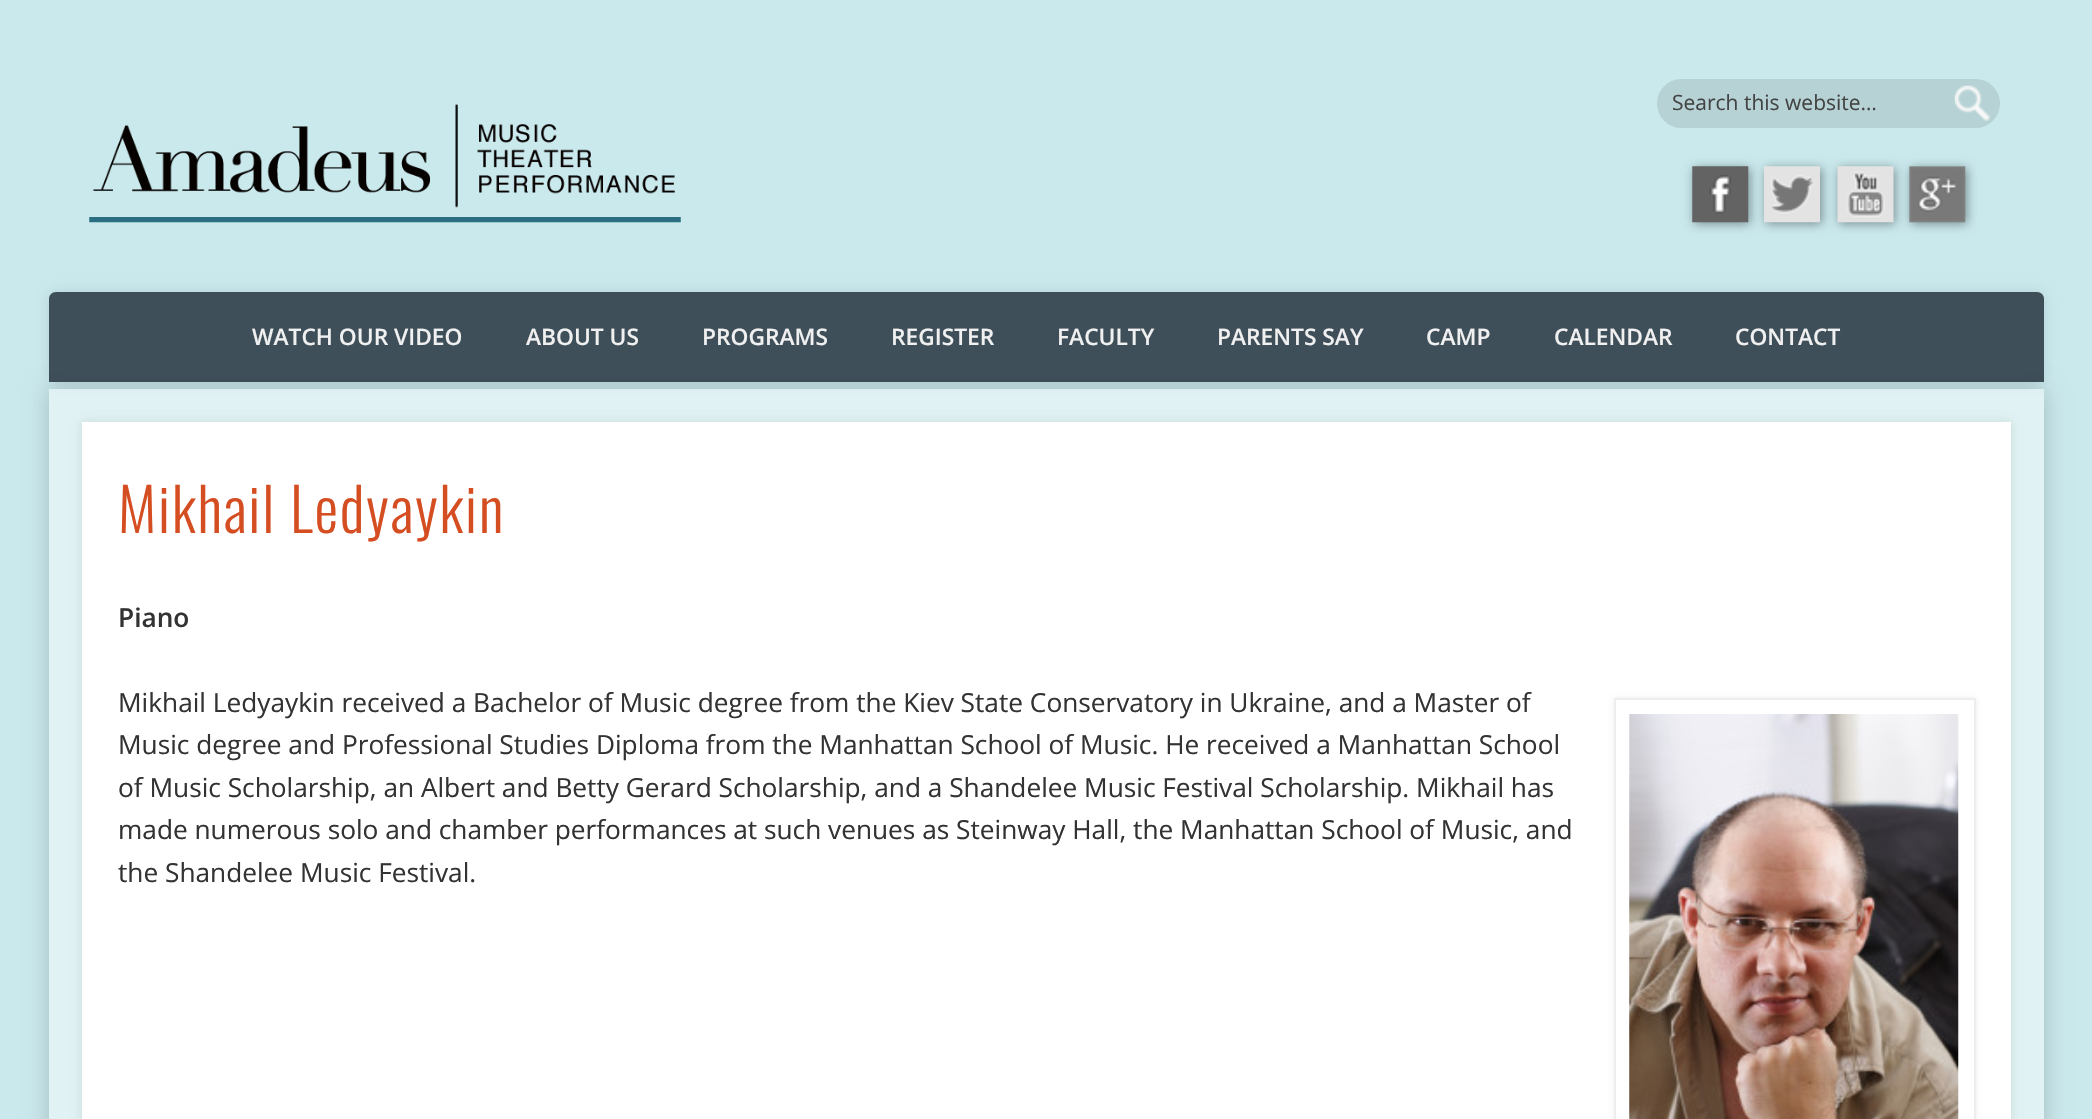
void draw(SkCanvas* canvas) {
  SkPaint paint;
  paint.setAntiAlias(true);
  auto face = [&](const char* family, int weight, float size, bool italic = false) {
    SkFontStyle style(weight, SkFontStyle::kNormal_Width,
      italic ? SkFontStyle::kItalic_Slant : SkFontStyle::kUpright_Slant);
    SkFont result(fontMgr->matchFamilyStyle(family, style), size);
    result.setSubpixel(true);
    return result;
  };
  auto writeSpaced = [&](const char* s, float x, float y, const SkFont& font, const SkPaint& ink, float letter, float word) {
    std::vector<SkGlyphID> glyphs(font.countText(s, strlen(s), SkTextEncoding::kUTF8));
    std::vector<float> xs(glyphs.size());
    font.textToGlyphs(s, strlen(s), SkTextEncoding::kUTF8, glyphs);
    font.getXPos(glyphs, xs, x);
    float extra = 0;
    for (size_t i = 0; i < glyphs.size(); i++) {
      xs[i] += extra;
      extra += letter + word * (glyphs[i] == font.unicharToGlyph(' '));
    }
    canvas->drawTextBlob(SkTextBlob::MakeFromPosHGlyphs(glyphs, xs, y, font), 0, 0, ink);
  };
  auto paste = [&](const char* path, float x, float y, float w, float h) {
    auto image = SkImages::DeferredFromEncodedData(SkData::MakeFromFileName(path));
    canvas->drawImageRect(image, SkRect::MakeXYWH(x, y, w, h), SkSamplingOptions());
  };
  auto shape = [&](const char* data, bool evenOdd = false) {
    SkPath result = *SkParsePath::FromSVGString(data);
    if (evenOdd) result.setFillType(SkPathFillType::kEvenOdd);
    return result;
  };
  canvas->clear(0xffcae9ed);
  paste("img/1.png", 89, 104, 592, 119);
  paint.setColor(0xffb6d2d5);
  canvas->drawRoundRect(SkRect::MakeXYWH(1657, 79, 343, 49), 24.5f, 24.5f, paint);
  paste("img/2.png", 1954, 85, 37, 36);
  paint.setColor(0x66000000);
  paint.setMaskFilter(SkMaskFilter::MakeBlur(kNormal_SkBlurStyle, 5));
  canvas->drawRect(SkRect::MakeXYWH(1694, 168, 56, 56), paint);
  paint.setMaskFilter(nullptr);
  paste("img/3.png", 1692, 166, 57, 57);
  paint.setMaskFilter(SkMaskFilter::MakeBlur(kNormal_SkBlurStyle, 5));
  canvas->drawRect(SkRect::MakeXYWH(1766, 168, 56, 56), paint);
  paint.setMaskFilter(nullptr);
  paste("img/4.png", 1764, 166, 56, 57);
  paint.setMaskFilter(SkMaskFilter::MakeBlur(kNormal_SkBlurStyle, 5));
  canvas->drawRect(SkRect::MakeXYWH(1839, 168, 56, 56), paint);
  paint.setMaskFilter(nullptr);
  paste("img/5.png", 1837, 166, 57, 57);
  canvas->save();
  canvas->clipPath(shape("M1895 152H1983V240H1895ZM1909 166H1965V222H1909Z", true), true);
  paint.setMaskFilter(SkMaskFilter::MakeBlur(kNormal_SkBlurStyle, 5));
  canvas->drawRect(SkRect::MakeXYWH(1911, 168, 56, 56), paint);
  paint.setMaskFilter(nullptr);
  canvas->restore();
  paste("img/6.png", 1909, 166, 57, 57);
  paint.setColor(0x33000000);
  paint.setMaskFilter(SkMaskFilter::MakeBlur(kNormal_SkBlurStyle, 10.5f));
  canvas->drawRect(SkRect::MakeXYWH(49, 389, 1995, 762), paint);
  paint.setMaskFilter(nullptr);
  paint.setColor(0xffe0f2f3);
  canvas->drawRect(SkRect::MakeXYWH(49, 389, 1995, 730), paint);
  canvas->save();
  canvas->clipPath(shape("M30 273H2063V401H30ZM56 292H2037C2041 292 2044 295 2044 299V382H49V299C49 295 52 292 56 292Z", true), true);
  paint.setColor(0x1a000000);
  paint.setMaskFilter(SkMaskFilter::MakeBlur(kNormal_SkBlurStyle, 6));
  canvas->drawRoundRect(SkRect::MakeXYWH(49, 292, 1995, 90), 7, 7, paint);
  paint.setMaskFilter(nullptr);
  canvas->restore();
  paint.setColor(0xcc1a2835);
  canvas->drawPath(shape("M56 292H2037C2041 292 2044 295 2044 299V382H49V299C49 295 52 292 56 292Z"), paint);
  paint.setColor(0x1a000000);
  paint.setMaskFilter(SkMaskFilter::MakeBlur(kNormal_SkBlurStyle, 4.5f));
  canvas->drawRect(SkRect::MakeXYWH(82, 422, 1929, 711), paint);
  paint.setMaskFilter(nullptr);
  paint.setColor(0xffffffff);
  canvas->drawRect(SkRect::MakeXYWH(82, 422, 1929, 697), paint);
  paint.setColor(0xffeeeeee);
  paint.setMaskFilter(SkMaskFilter::MakeBlur(kNormal_SkBlurStyle, 2.5f));
  canvas->drawRect(SkRect::MakeXYWH(1614, 698, 362, 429), paint);
  paint.setMaskFilter(nullptr);
  paint.setColor(0xffffffff);
  canvas->drawRect(SkRect::MakeXYWH(1615, 699, 360, 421), paint);
  paint.setStroke(true);
  paint.setStrokeWidth(2);
  paint.setColor(0xffeeeeee);
  canvas->drawRect(SkRect::MakeXYWH(1615, 699, 360, 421), paint);
  paste("img/7.png", 1629, 714, 330, 405);
  auto f0 = face("Open Sans", 400, 21);
  paint.setStroke(false);
  paint.setColor(0xff444444);
  canvas->drawString("Search this website…", 1672, 110, f0, paint);
  auto f1 = face("Open Sans", 600, 22.75f);
  paint.setColor(0xfff0f0f0);
  {
    const struct { const char* s; float x, y; } items[] = {
      {"WATCH OUR VIDEO", 252, 345},
      {"ABOUT US", 526, 345},
      {"PROGRAMS", 702, 345},
      {"REGISTER", 891, 345},
      {"FACULTY", 1057, 345},
      {"PARENTS SAY", 1217, 345},
      {"CAMP", 1426, 345},
      {"CALENDAR", 1554, 345},
      {"CONTACT", 1735, 345},
    };
    for (auto [s, x, y] : items) {
      canvas->drawString(s, x, y, f1, paint);
    }
  }
  auto f2 = face("Oswald", 300, 59.5f);
  paint.setColor(0xffd54e21);
  writeSpaced("Mikhail Ledyaykin", 118, 533, f2, paint, 1.75f, 0);
  auto f3 = face("Open Sans", 600, 26.25f);
  paint.setColor(0xff333333);
  canvas->drawString("Piano", 118, 627, f3, paint);
  auto f4 = face("Open Sans", 400, 26.25f);
  {
    const struct { const char* s; float x, y; } items[] = {
      {"Mikhail Ledyaykin received a Bachelor of Music degree from the Kiev State Conservatory in Ukraine, and a Master of", 118, 712},
      {"Music degree and Professional Studies Diploma from the Manhattan School of Music. He received a Manhattan School", 118, 754},
      {"of Music Scholarship, an Albert and Betty Gerard Scholarship, and a Shandelee Music Festival Scholarship. Mikhail has", 118, 797},
      {"made numerous solo and chamber performances at such venues as Steinway Hall, the Manhattan School of Music, and", 118, 839},
      {"the Shandelee Music Festival.", 118, 882},
    };
    for (auto [s, x, y] : items) {
      canvas->drawString(s, x, y, f4, paint);
    }
  }
}
